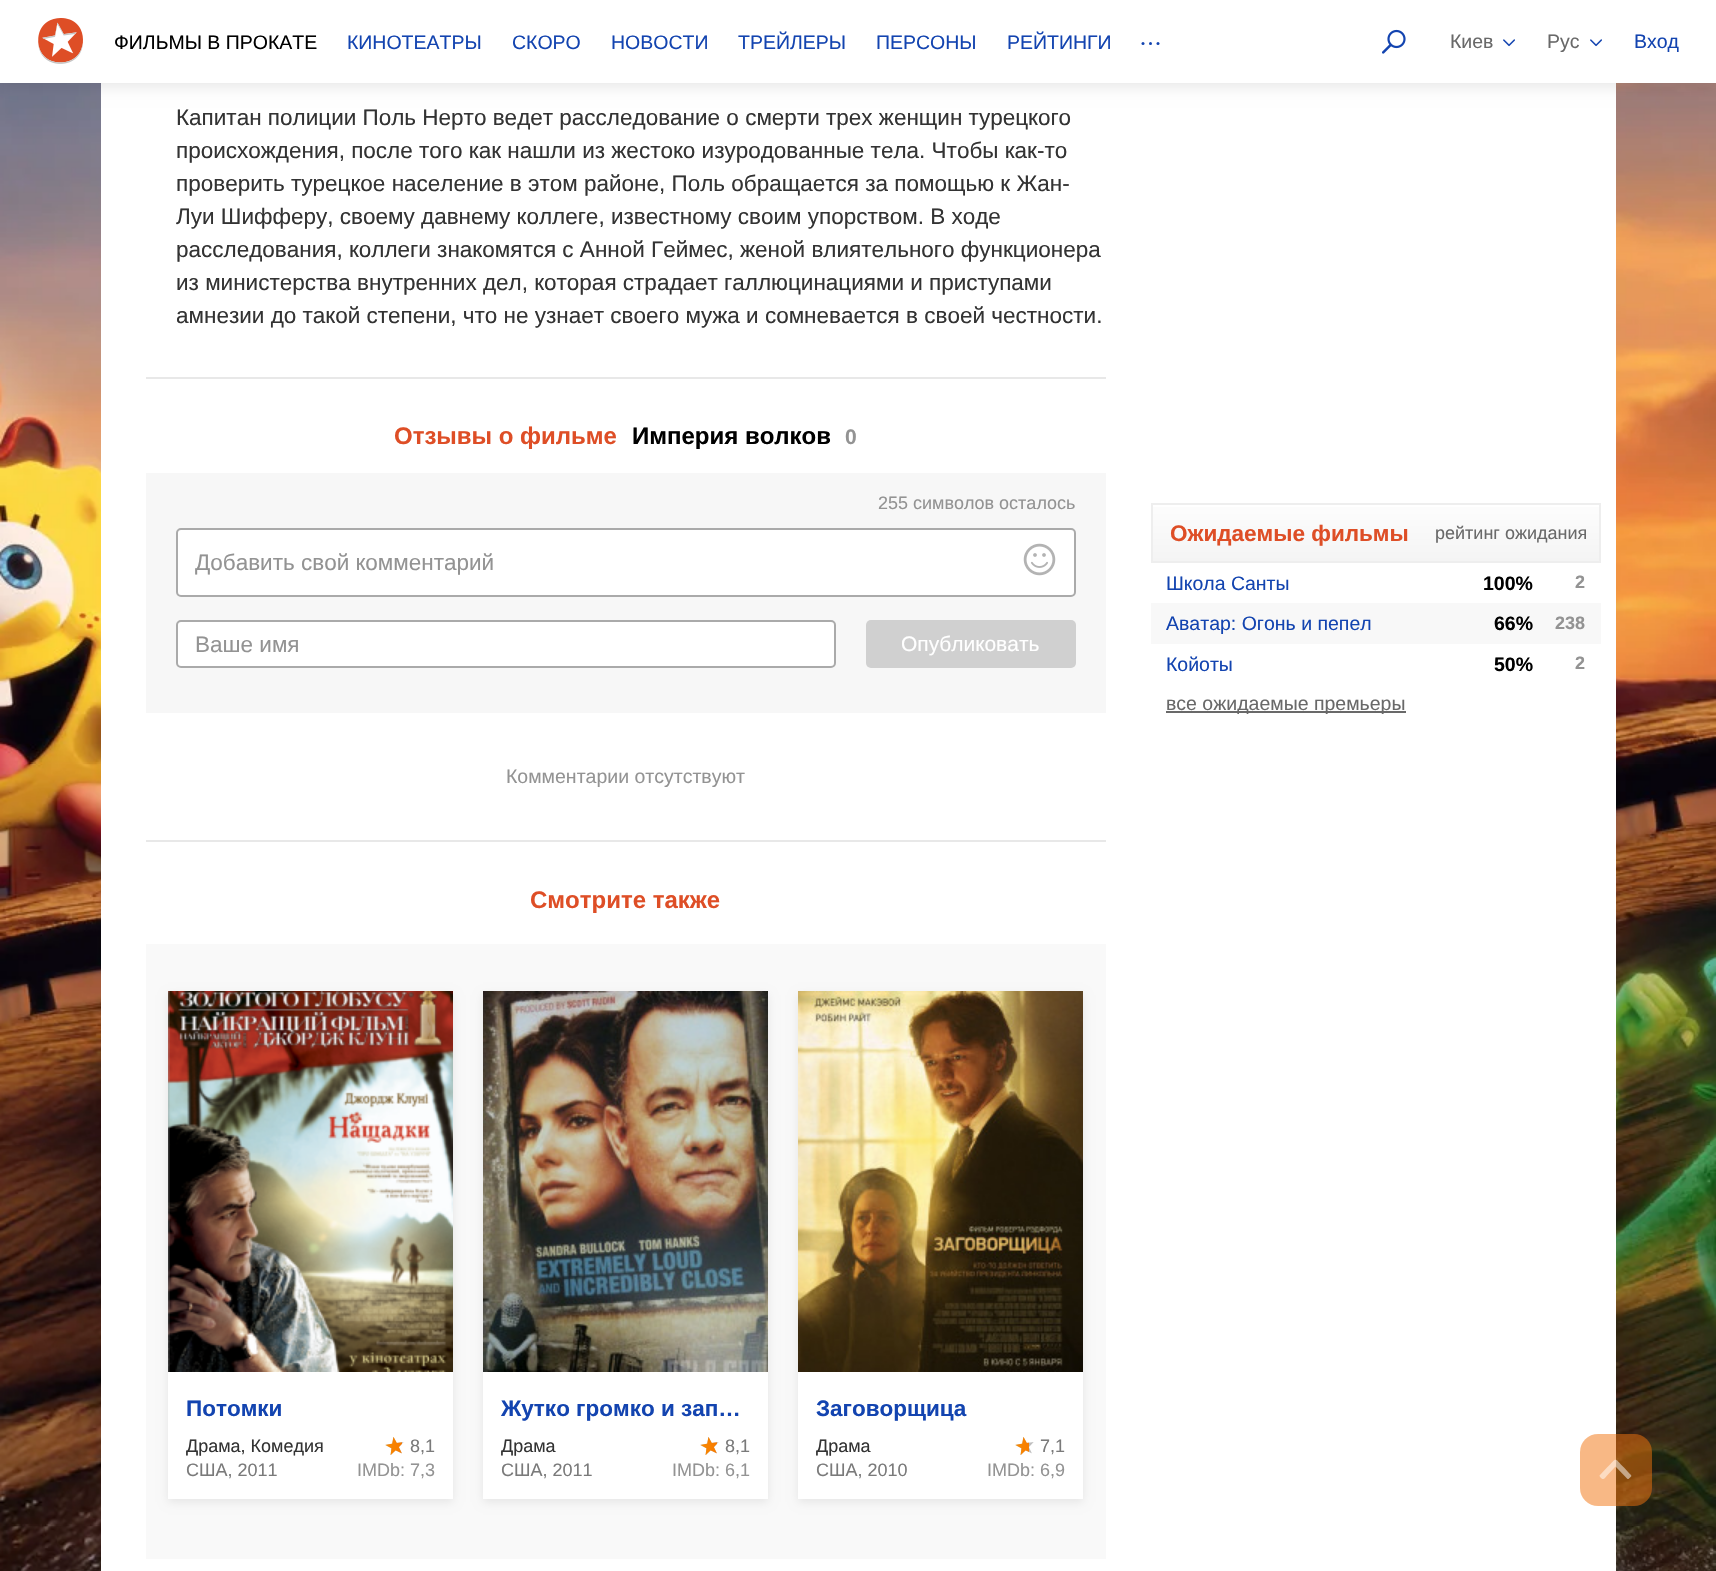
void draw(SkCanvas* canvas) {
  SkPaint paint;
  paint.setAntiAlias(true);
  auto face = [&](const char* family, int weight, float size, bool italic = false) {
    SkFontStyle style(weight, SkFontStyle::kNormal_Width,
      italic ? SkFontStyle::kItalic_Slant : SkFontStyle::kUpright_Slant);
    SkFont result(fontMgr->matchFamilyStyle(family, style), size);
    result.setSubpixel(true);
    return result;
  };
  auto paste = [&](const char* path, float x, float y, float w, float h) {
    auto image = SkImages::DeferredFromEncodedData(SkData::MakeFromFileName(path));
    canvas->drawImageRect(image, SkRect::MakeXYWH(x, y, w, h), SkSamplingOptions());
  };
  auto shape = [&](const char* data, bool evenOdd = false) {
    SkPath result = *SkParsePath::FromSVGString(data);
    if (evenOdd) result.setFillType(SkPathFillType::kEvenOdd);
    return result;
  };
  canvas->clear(0xffffffff);
  paste("img/11.png", 0, 83, 1716, 1488);
  paint.setColor(0xffffffff);
  canvas->drawRect(SkRect::MakeXYWH(101, 83, 1515, 1488), paint);
  paint.setColor(0x1a000000);
  paint.setMaskFilter(SkMaskFilter::MakeBlur(kNormal_SkBlurStyle, 7.5f));
  canvas->drawRect(SkRect::MakeXYWH(0, 3, 1716, 83), paint);
  paint.setMaskFilter(nullptr);
  paint.setColor(0xffffffff);
  canvas->drawRect(SkRect::MakeXYWH(0, 0, 1716, 83), paint);
  paste("img/1.png", 38, 18, 45, 46);
  paint.setColor(0xff1344b0);
  canvas->drawCircle(1143, 43.5f, 1.5f, paint);
  canvas->drawCircle(1150.5f, 43.5f, 1.5f, paint);
  canvas->drawCircle(1158, 43.5f, 1.5f, paint);
  paste("img/2.png", 1382, 29, 24, 25);
  paste("img/3.png", 1503, 39, 12, 8);
  paste("img/3.png", 1590, 39, 12, 8);
  {
    const struct { float x, y, w, h; SkColor color; } items[] = {
      {146, 377, 960, 2, 0xffe8e8e8},
      {146, 840, 960, 2, 0xffe8e8e8},
      {146, 473, 960, 240, 0xfff7f7f7},
    };
    for (auto [x, y, w, h, color] : items) {
      paint.setColor(color);
      canvas->drawRect(SkRect::MakeXYWH(x, y, w, h), paint);
    }
  }
  paint.setColor(0xffffffff);
  canvas->drawRoundRect(SkRect::MakeXYWH(177, 529, 898, 67), 4, 4, paint);
  paint.setStroke(true);
  paint.setStrokeWidth(2);
  paint.setColor(0xffaaaaaa);
  canvas->drawRoundRect(SkRect::MakeXYWH(177, 529, 898, 67), 4, 4, paint);
  paste("img/4.png", 1023, 543, 33, 33);
  paint.setStroke(false);
  paint.setColor(0xffffffff);
  canvas->drawRoundRect(SkRect::MakeXYWH(177, 621, 658, 46), 4, 4, paint);
  paint.setStroke(true);
  paint.setColor(0xffaaaaaa);
  canvas->drawRoundRect(SkRect::MakeXYWH(177, 621, 658, 46), 4, 4, paint);
  paint.setStroke(false);
  paint.setColor(0xffd0d0d0);
  canvas->drawRoundRect(SkRect::MakeXYWH(866, 620, 210, 48), 5, 5, paint);
  paint.setColor(0xfff9f9f9);
  canvas->drawRect(SkRect::MakeXYWH(146, 944, 960, 615), paint);
  paint.setColor(0x14000000);
  paint.setMaskFilter(SkMaskFilter::MakeBlur(kNormal_SkBlurStyle, 4.5f));
  canvas->drawRect(SkRect::MakeXYWH(168, 995, 285, 507), paint);
  paint.setMaskFilter(nullptr);
  paint.setColor(0xffffffff);
  canvas->drawRect(SkRect::MakeXYWH(168, 1372, 285, 127), paint);
  paste("img/5.png", 168, 991, 285, 381);
  paste("img/6.png", 385, 1437, 19, 18);
  paste("img/7.png", 385, 1437, 17, 18);
  paint.setColor(0x14000000);
  paint.setMaskFilter(SkMaskFilter::MakeBlur(kNormal_SkBlurStyle, 4.5f));
  canvas->drawRect(SkRect::MakeXYWH(483, 995, 285, 507), paint);
  paint.setMaskFilter(nullptr);
  paint.setColor(0xffffffff);
  canvas->drawRect(SkRect::MakeXYWH(483, 1372, 285, 127), paint);
  paste("img/8.png", 483, 991, 285, 381);
  paste("img/6.png", 700, 1437, 19, 18);
  paste("img/7.png", 700, 1437, 17, 18);
  paint.setColor(0x14000000);
  paint.setMaskFilter(SkMaskFilter::MakeBlur(kNormal_SkBlurStyle, 4.5f));
  canvas->drawRect(SkRect::MakeXYWH(798, 995, 285, 507), paint);
  paint.setMaskFilter(nullptr);
  paint.setColor(0xffffffff);
  canvas->drawRect(SkRect::MakeXYWH(798, 1372, 285, 127), paint);
  paste("img/9.png", 798, 991, 285, 381);
  paste("img/6.png", 1015, 1437, 19, 18);
  paste("img/10.png", 1015, 1437, 14, 18);
  {
    const SkColor colors[] = {0xfffdfdfd, 0xfff4f4f4};
    const float stops[] = {0, 1};
    const SkPoint ends[] = {{1376, 504}, {1376, 561}};
    paint.setShader(SkGradientShader::MakeLinear(ends, colors, stops, 2, SkTileMode::kClamp));
    paint.setAlpha(255);
  }
  canvas->drawRect(SkRect::MakeXYWH(1153, 507, 446, 54), paint);
  paint.setStroke(true);
  paint.setShader(nullptr);
  paint.setColor(0xffeeeeee);
  canvas->drawRect(SkRect::MakeXYWH(1152, 504, 448, 58), paint);
  paint.setStroke(false);
  paint.setColor(0xfff8f8f8);
  canvas->drawRect(SkRect::MakeXYWH(1151, 603, 450, 41), paint);
  paint.setColor(0xff696969);
  canvas->drawRect(SkRect::MakeXYWH(1166, 711, 240, 2), paint);
  paint.setColor(0x80f2720c);
  canvas->drawRoundRect(SkRect::MakeXYWH(1580, 1434, 72, 72), 18, 18, paint);
  paint.setColor(0x80ffffff);
  canvas->drawPath(shape("M1629 1478.5C1632.5 1475.5 1632 1476 1628.5 1472.5L1624 1467.5C1613.5 1457 1617.5 1457 1607 1467.5L1599.5 1475.5C1599.5 1476 1600 1477 1600.5 1477.5C1604 1481 1604.5 1478 1608 1474.5L1615.5 1466.5L1627 1478.5C1627.5 1479 1628.5 1479.5 1629 1478.5Z", true), paint);
  auto f0 = face("Liberation Sans", 400, 19.5f);
  paint.setColor(0xff000000);
  canvas->drawString("ФИЛЬМЫ В ПРОКАТЕ", 114, 49, f0, paint);
  paint.setColor(0xff1344b0);
  {
    const struct { const char* s; float x, y; } items[] = {
      {"КИНОТЕАТРЫ", 347, 49},
      {"СКОРО", 512, 49},
      {"НОВОСТИ", 611, 49},
      {"ТРЕЙЛЕРЫ", 738, 49},
      {"ПЕРСОНЫ", 876, 49},
      {"РЕЙТИНГИ", 1007, 49},
    };
    for (auto [s, x, y] : items) {
      canvas->drawString(s, x, y, f0, paint);
    }
  }
  paint.setColor(0xff696969);
  canvas->drawString("Киев", 1450, 48, f0, paint);
  canvas->drawString("Рус", 1547, 48, f0, paint);
  paint.setColor(0xff1344b0);
  canvas->drawString("Вход", 1634, 48, f0, paint);
  auto f1 = face("Liberation Sans", 400, 22.5f);
  paint.setColor(0xff333333);
  {
    const struct { const char* s; float x, y; } items[] = {
      {"Капитан полиции Поль Нерто ведет расследование о смерти трех женщин турецкого", 176, 125},
      {"происхождения, после того как нашли из жестоко изуродованные тела. Чтобы как-то", 176, 158},
      {"проверить турецкое население в этом районе, Поль обращается за помощью к Жан-", 176, 191},
      {"Луи Шифферу, своему давнему коллеге, известному своим упорством. В ходе", 176, 224},
      {"расследования, коллеги знакомятся с Анной Геймес, женой влиятельного функционера", 176, 257},
      {"из министерства внутренних дел, которая страдает галлюцинациями и приступами", 176, 290},
      {"амнезии до такой степени, что не узнает своего мужа и сомневается в своей честности.", 176, 323},
    };
    for (auto [s, x, y] : items) {
      canvas->drawString(s, x, y, f1, paint);
    }
  }
  auto f2 = face("Liberation Sans", 700, 24);
  paint.setColor(0xffde4e26);
  canvas->drawString("Отзывы о фильме", 394, 444, f2, paint);
  paint.setColor(0xff000000);
  canvas->drawString("Империя волков", 632, 444, f2, paint);
  auto f3 = face("Liberation Sans", 700, 21);
  paint.setColor(0xff939393);
  canvas->drawString("0", 845, 444, f3, paint);
  auto f4 = face("Liberation Sans", 400, 18);
  canvas->drawString("255 символов осталось", 878, 509, f4, paint);
  canvas->drawString("Добавить свой комментарий", 195, 570, f1, paint);
  canvas->drawString("Ваше имя", 195, 652, f1, paint);
  auto f5 = face("Liberation Sans", 400, 21);
  paint.setColor(0xffffffff);
  canvas->drawString("Опубликовать", 901, 651, f5, paint);
  paint.setColor(0xff939393);
  canvas->drawString("Комментарии отсутствуют", 506, 783, f0, paint);
  paint.setColor(0xffde4e26);
  canvas->drawString("Смотрите также", 530, 908, f2, paint);
  auto f6 = face("Liberation Sans", 700, 22.5f);
  paint.setColor(0xff1344b0);
  canvas->drawString("Потомки", 186, 1416, f6, paint);
  paint.setColor(0xff333333);
  canvas->drawString("Драма, Комедия", 186, 1452, f4, paint);
  paint.setColor(0xff7a7a7a);
  canvas->drawString("США, 2011", 186, 1476, f4, paint);
  canvas->drawString("8,1", 410, 1452, f4, paint);
  paint.setColor(0xff939393);
  canvas->drawString("IMDb: 7,3", 357, 1476, f4, paint);
  paint.setColor(0xff1344b0);
  canvas->drawString("Жутко громко и зап…", 501, 1416, f6, paint);
  paint.setColor(0xff333333);
  canvas->drawString("Драма", 501, 1452, f4, paint);
  paint.setColor(0xff7a7a7a);
  canvas->drawString("США, 2011", 501, 1476, f4, paint);
  canvas->drawString("8,1", 725, 1452, f4, paint);
  paint.setColor(0xff939393);
  canvas->drawString("IMDb: 6,1", 672, 1476, f4, paint);
  paint.setColor(0xff1344b0);
  canvas->drawString("Заговорщица", 816, 1416, f6, paint);
  paint.setColor(0xff333333);
  canvas->drawString("Драма", 816, 1452, f4, paint);
  paint.setColor(0xff7a7a7a);
  canvas->drawString("США, 2010", 816, 1476, f4, paint);
  canvas->drawString("7,1", 1040, 1452, f4, paint);
  paint.setColor(0xff939393);
  canvas->drawString("IMDb: 6,9", 987, 1476, f4, paint);
  paint.setColor(0xffde4e26);
  canvas->drawString("Ожидаемые фильмы", 1170, 541, f6, paint);
  paint.setColor(0xff696969);
  canvas->drawString("рейтинг ожидания", 1435, 539, f4, paint);
  paint.setColor(0xff1344b0);
  canvas->drawString("Школа Санты", 1166, 590, f0, paint);
  auto f7 = face("Liberation Sans", 700, 19.5f);
  paint.setColor(0xff000000);
  canvas->drawString("100%", 1483, 590, f7, paint);
  auto f8 = face("Liberation Sans", 700, 18);
  paint.setColor(0xff939393);
  canvas->drawString("2", 1575, 588, f8, paint);
  paint.setColor(0xff1344b0);
  canvas->drawString("Аватар: Огонь и пепел", 1166, 630, f0, paint);
  paint.setColor(0xff000000);
  canvas->drawString("66%", 1494, 630, f7, paint);
  paint.setColor(0xff939393);
  canvas->drawString("238", 1555, 629, f8, paint);
  paint.setColor(0xff1344b0);
  canvas->drawString("Койоты", 1166, 671, f0, paint);
  paint.setColor(0xff000000);
  canvas->drawString("50%", 1494, 671, f7, paint);
  paint.setColor(0xff939393);
  canvas->drawString("2", 1575, 669, f8, paint);
  paint.setColor(0xff696969);
  canvas->drawString("все ожидаемые премьеры", 1166, 710, f0, paint);
}
